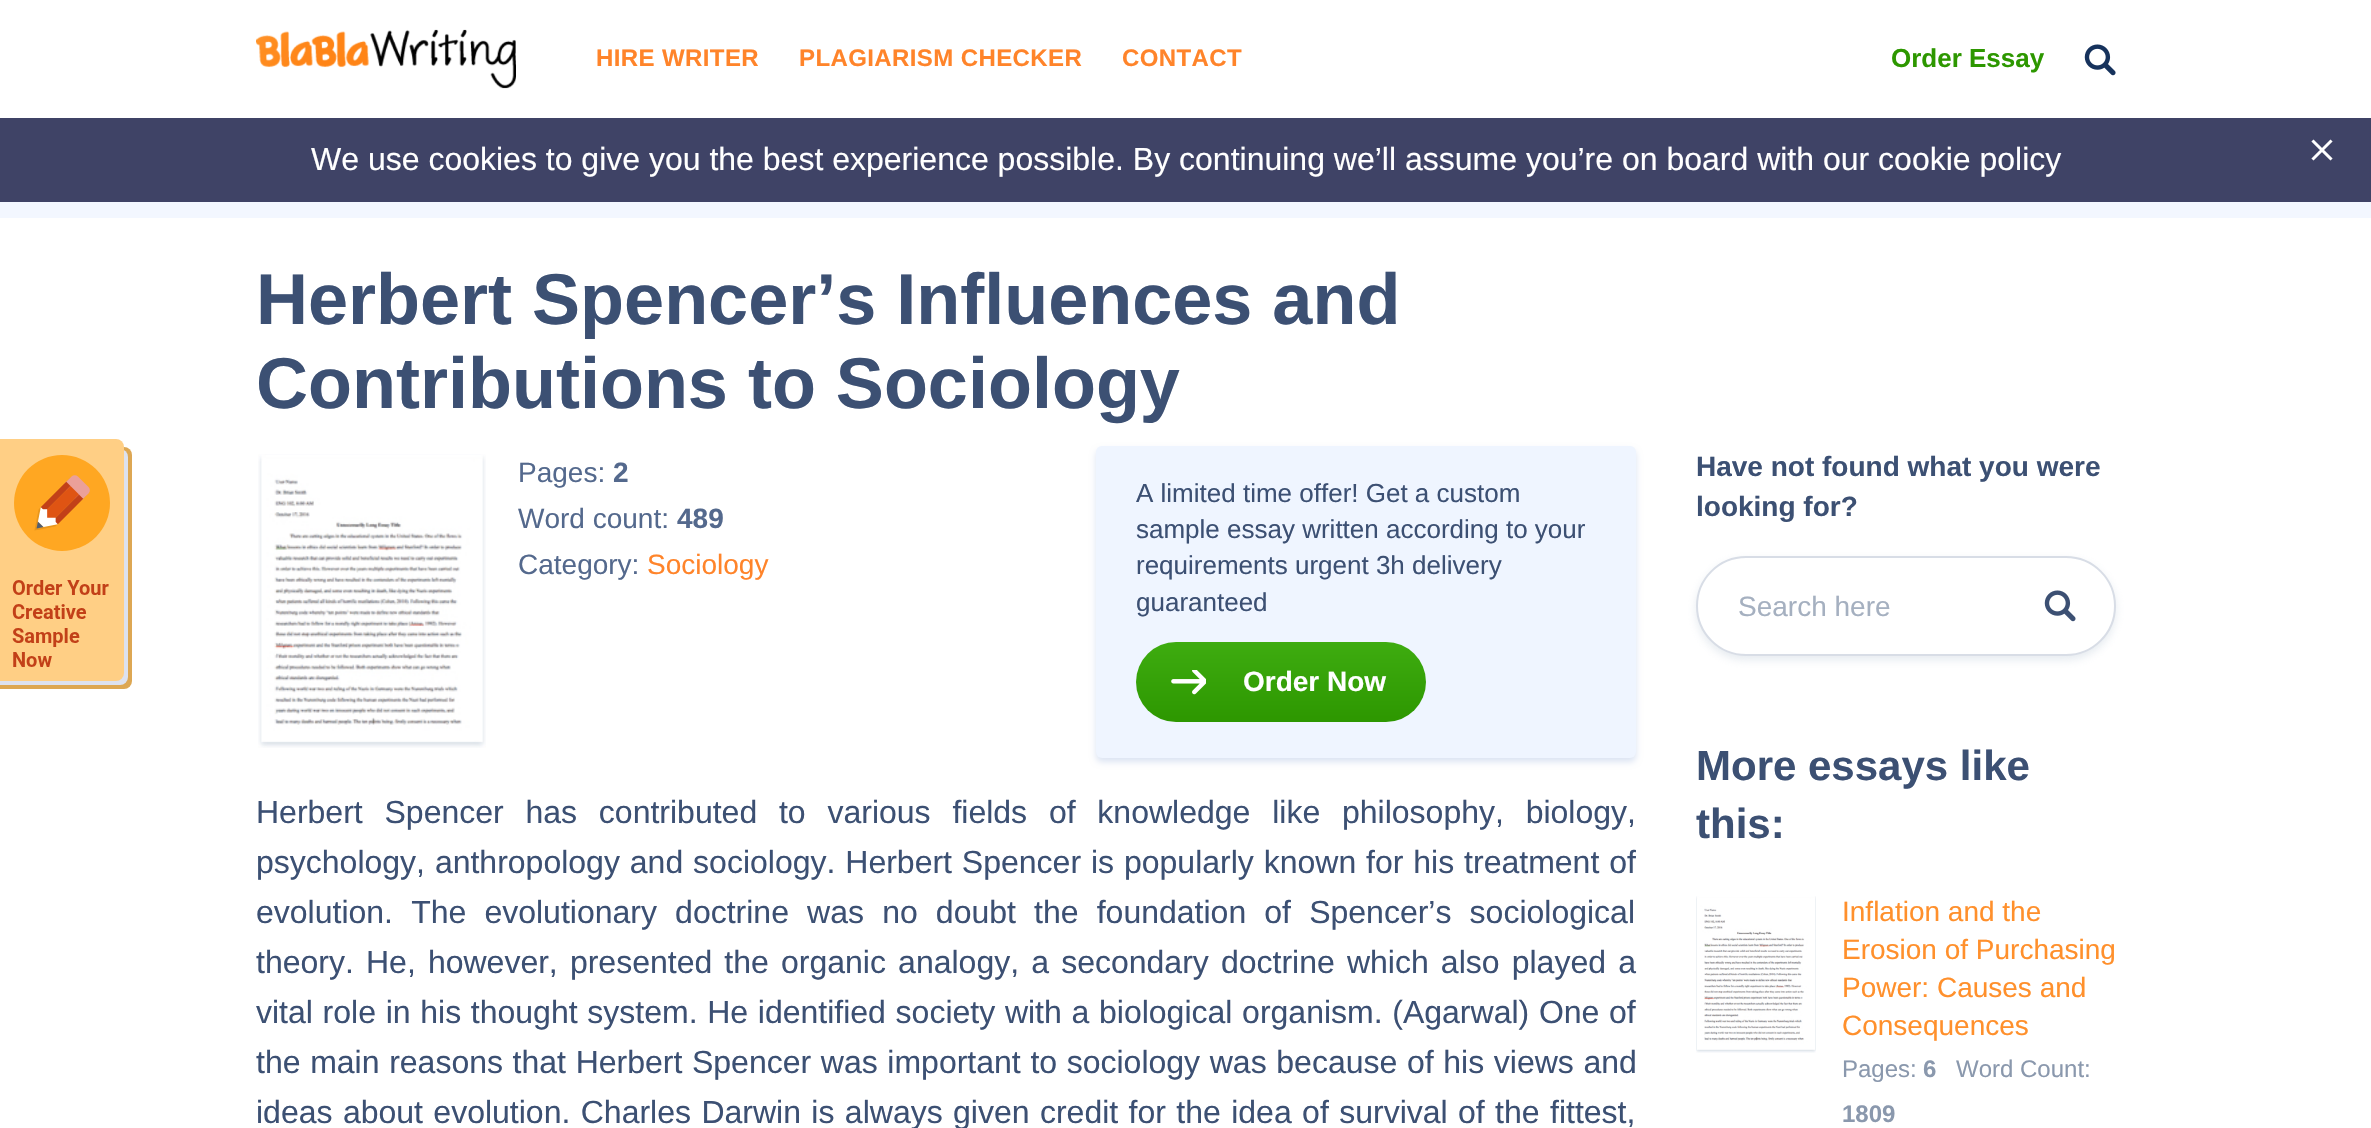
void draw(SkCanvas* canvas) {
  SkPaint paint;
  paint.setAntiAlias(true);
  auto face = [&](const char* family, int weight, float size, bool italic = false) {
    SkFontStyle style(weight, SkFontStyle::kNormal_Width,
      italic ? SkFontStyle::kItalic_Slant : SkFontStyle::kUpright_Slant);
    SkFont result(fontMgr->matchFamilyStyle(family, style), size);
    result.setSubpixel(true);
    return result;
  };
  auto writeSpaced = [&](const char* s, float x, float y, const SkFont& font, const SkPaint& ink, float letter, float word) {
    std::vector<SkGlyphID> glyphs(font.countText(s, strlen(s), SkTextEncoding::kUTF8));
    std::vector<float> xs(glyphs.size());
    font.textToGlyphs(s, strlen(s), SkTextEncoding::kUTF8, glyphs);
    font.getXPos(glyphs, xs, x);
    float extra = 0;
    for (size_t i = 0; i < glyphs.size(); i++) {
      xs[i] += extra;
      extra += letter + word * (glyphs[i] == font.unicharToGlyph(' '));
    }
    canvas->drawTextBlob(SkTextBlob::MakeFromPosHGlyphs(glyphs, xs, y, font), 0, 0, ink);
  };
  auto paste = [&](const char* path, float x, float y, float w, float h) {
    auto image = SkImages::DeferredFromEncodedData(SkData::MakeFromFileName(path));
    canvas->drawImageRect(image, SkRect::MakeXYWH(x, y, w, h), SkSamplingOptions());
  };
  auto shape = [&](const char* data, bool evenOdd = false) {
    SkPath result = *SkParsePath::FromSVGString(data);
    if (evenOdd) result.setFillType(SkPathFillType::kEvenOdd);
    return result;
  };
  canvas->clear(0xffffffff);
  paste("img/1.png", 256, 29, 260, 60);
  paste("img/2.png", 2084, 44, 32, 32);
  paint.setColor(0xff3f4366);
  canvas->drawRect(SkRect::MakeXYWH(0, 118, 2371, 84), paint);
  paint.setStroke(true);
  paint.setStrokeWidth(3);
  paint.setStrokeCap(SkPaint::kSquare_Cap);
  paint.setColor(0xffffffff);
  canvas->drawPath(shape("M2330.5 141.5L2313.5 158.5M2330.5 158.5L2313.5 141.5"), paint);
  paste("img/3.png", 0, 439, 132, 250);
  paint.setStroke(false);
  paint.setColor(0xfff3f7ff);
  canvas->drawRect(SkRect::MakeXYWH(0, 202, 2371, 16), paint);
  paste("img/4.png", 258, 454, 228, 294);
  paint.setColor(0xffdce4f3);
  paint.setMaskFilter(SkMaskFilter::MakeBlur(kNormal_SkBlurStyle, 3));
  canvas->drawRoundRect(SkRect::MakeXYWH(1096, 450, 540, 312), 6, 6, paint);
  paint.setMaskFilter(nullptr);
  paint.setColor(0xffeff5ff);
  canvas->drawRoundRect(SkRect::MakeXYWH(1096, 446, 540, 312), 6, 6, paint);
  {
    const SkColor colors[] = {0xff2d9700, 0xff3eac10};
    const float stops[] = {0, 1};
    const SkPoint ends[] = {{1281, 722}, {1281, 642}};
    paint.setShader(SkGradientShader::MakeLinear(ends, colors, stops, 2, SkTileMode::kClamp));
    paint.setAlpha(255);
  }
  canvas->drawRoundRect(SkRect::MakeXYWH(1136, 642, 290, 80), 40, 40, paint);
  paste("img/5.png", 1171, 670, 35, 25);
  paint.setShader(nullptr);
  paint.setColor(0x73c7d2de);
  paint.setMaskFilter(SkMaskFilter::MakeBlur(kNormal_SkBlurStyle, 4));
  canvas->drawRoundRect(SkRect::MakeXYWH(1696, 560, 420, 100), 50, 50, paint);
  paint.setMaskFilter(nullptr);
  paint.setColor(0xffffffff);
  canvas->drawRoundRect(SkRect::MakeXYWH(1697, 557, 418, 98), 49, 49, paint);
  paint.setStroke(true);
  paint.setStrokeWidth(2);
  paint.setStrokeCap(SkPaint::kButt_Cap);
  paint.setColor(0xffd8dde6);
  canvas->drawRoundRect(SkRect::MakeXYWH(1697, 557, 418, 98), 49, 49, paint);
  paste("img/6.png", 2044, 590, 32, 32);
  paste("img/7.png", 1696, 896, 120, 157);
  auto f0 = face("Liberation Sans", 700, 24);
  paint.setStroke(false);
  paint.setColor(0xffff842a);
  {
    const struct { const char* s; float x, y; } items[] = {
      {"HIRE WRITER", 596, 66},
      {"PLAGIARISM CHECKER", 799, 66},
      {"CONTACT", 1122, 66},
    };
    for (auto [s, x, y] : items) {
      writeSpaced(s, x, y, f0, paint, 0.4f, 0);
    }
  }
  auto f1 = face("Liberation Sans", 700, 26);
  paint.setColor(0xff2d9700);
  canvas->drawString("Order Essay", 1891, 67, f1, paint);
  auto f2 = face("Liberation Sans", 400, 32);
  paint.setColor(0xffffffff);
  canvas->drawString("We use cookies to give you the best experience possible. By continuing we’ll assume you’re on board with our cookie policy", 311, 170, f2, paint);
  auto f3 = face("Liberation Sans", 700, 72);
  paint.setColor(0xff3c5073);
  canvas->drawString("Herbert Spencer’s Influences and", 256, 324, f3, paint);
  canvas->drawString("Contributions to Sociology", 256, 408, f3, paint);
  auto f4 = face("Liberation Sans", 400, 28);
  paint.setColor(0xff54698d);
  canvas->drawString("Pages:", 518, 482, f4, paint);
  auto f5 = face("Liberation Sans", 700, 28);
  canvas->drawString("2", 613, 482, f5, paint);
  canvas->drawString("Word count:", 518, 528, f4, paint);
  canvas->drawString("489", 677, 528, f5, paint);
  canvas->drawString("Category:", 518, 574, f4, paint);
  paint.setColor(0xffff842a);
  canvas->drawString("Sociology", 647, 574, f4, paint);
  auto f6 = face("Liberation Sans", 400, 26);
  paint.setColor(0xff3c5073);
  {
    const struct { const char* s; float x, y; } items[] = {
      {"A limited time offer! Get a custom", 1136, 502},
      {"sample essay written according to your", 1136, 538},
      {"requirements urgent 3h delivery", 1136, 574},
      {"guaranteed", 1136, 611},
    };
    for (auto [s, x, y] : items) {
      canvas->drawString(s, x, y, f6, paint);
    }
  }
  paint.setColor(0xffffffff);
  canvas->drawString("Order Now", 1243, 691, f5, paint);
  paint.setColor(0xff3c5073);
  writeSpaced("Herbert Spencer has contributed to various fields of knowledge like philosophy, biology,", 256, 823, f2, paint, 0, 12.9f);
  writeSpaced("psychology, anthropology and sociology. Herbert Spencer is popularly known for his treatment of", 256, 873, f2, paint, 0, 1);
  writeSpaced("evolution. The evolutionary doctrine was no doubt the foundation of Spencer’s sociological", 256, 923, f2, paint, 0, 9.25f);
  writeSpaced("theory. He, however, presented the organic analogy, a secondary doctrine which also played a", 256, 973, f2, paint, 0, 3.25f);
  writeSpaced("vital role in his thought system. He identified society with a biological organism. (Agarwal) One of", 256, 1023, f2, paint, 0, 0.8f);
  writeSpaced("the main reasons that Herbert Spencer was important to sociology was because of his views and", 256, 1073, f2, paint, 0, 0.75f);
  writeSpaced("ideas about evolution. Charles Darwin is always given credit for the idea of survival of the fittest,", 256, 1123, f2, paint, 0, 1.5f);
  canvas->drawString("Have not found what you were", 1696, 476, f5, paint);
  canvas->drawString("looking for?", 1696, 516, f5, paint);
  paint.setColor(0xffa5b0c0);
  canvas->drawString("Search here", 1738, 616, f4, paint);
  auto f7 = face("Liberation Sans", 700, 42);
  paint.setColor(0xff3c5073);
  canvas->drawString("More essays like", 1696, 780, f7, paint);
  canvas->drawString("this:", 1696, 838, f7, paint);
  paint.setColor(0xffff902c);
  {
    const struct { const char* s; float x, y; } items[] = {
      {"Inflation and the", 1842, 921},
      {"Erosion of Purchasing", 1842, 959},
      {"Power: Causes and", 1842, 997},
      {"Consequences", 1842, 1035},
    };
    for (auto [s, x, y] : items) {
      canvas->drawString(s, x, y, f4, paint);
    }
  }
  auto f8 = face("Liberation Sans", 400, 24);
  paint.setColor(0xff8a98ad);
  canvas->drawString("Pages:", 1842, 1077, f8, paint);
  canvas->drawString("6", 1923, 1077, f0, paint);
  canvas->drawString("Word Count:", 1956, 1077, f8, paint);
  canvas->drawString("1809", 1842, 1122, f0, paint);
}
